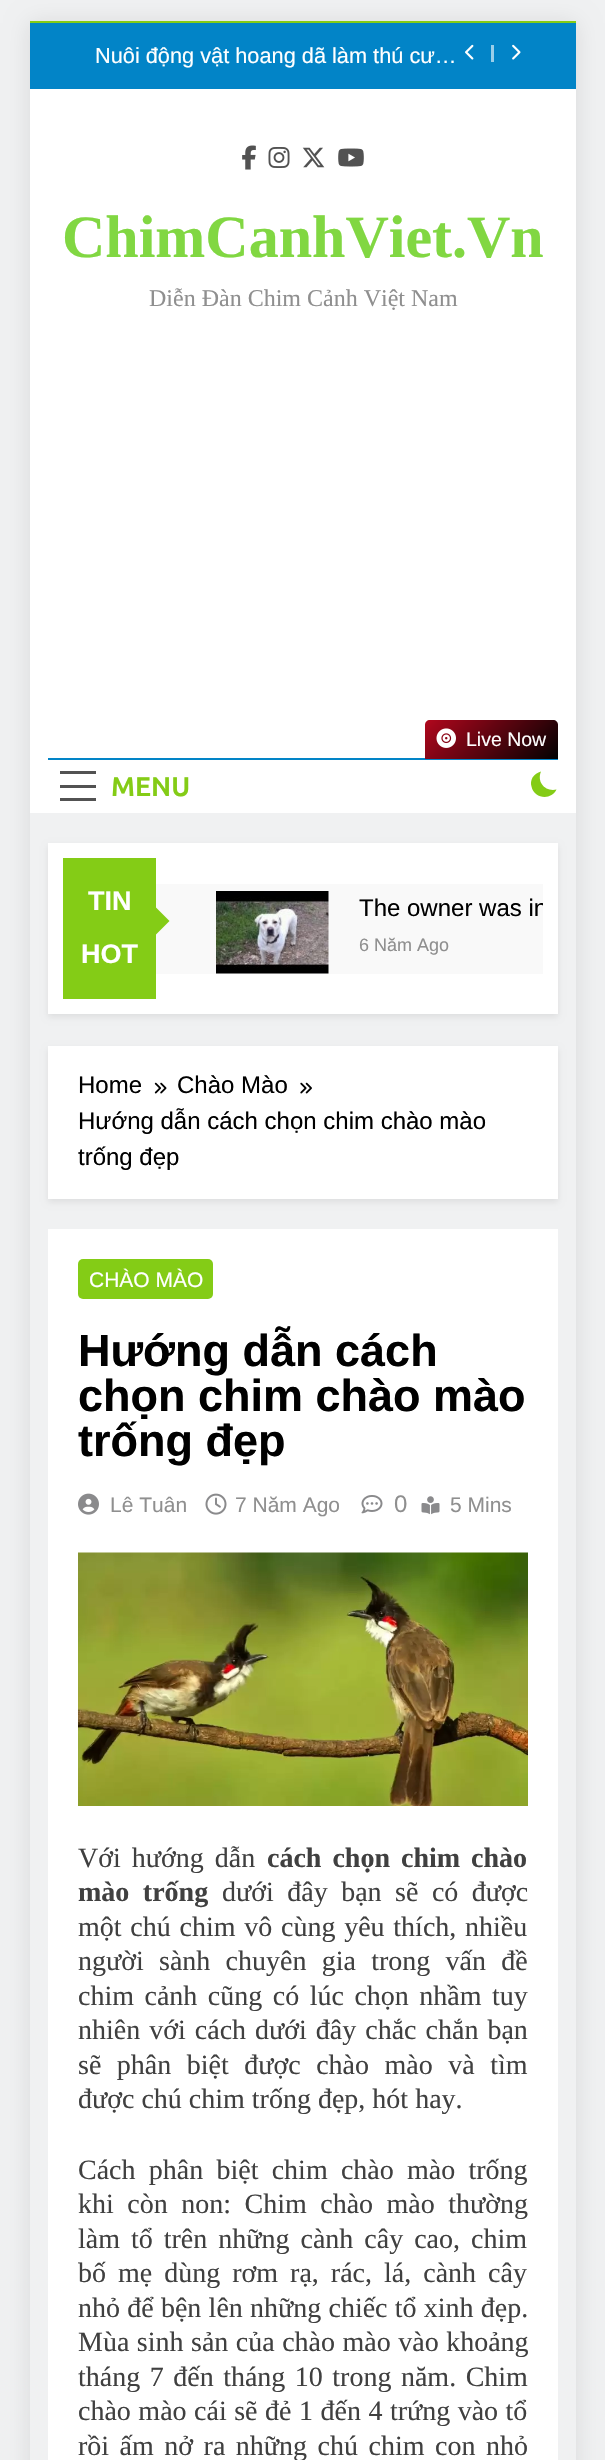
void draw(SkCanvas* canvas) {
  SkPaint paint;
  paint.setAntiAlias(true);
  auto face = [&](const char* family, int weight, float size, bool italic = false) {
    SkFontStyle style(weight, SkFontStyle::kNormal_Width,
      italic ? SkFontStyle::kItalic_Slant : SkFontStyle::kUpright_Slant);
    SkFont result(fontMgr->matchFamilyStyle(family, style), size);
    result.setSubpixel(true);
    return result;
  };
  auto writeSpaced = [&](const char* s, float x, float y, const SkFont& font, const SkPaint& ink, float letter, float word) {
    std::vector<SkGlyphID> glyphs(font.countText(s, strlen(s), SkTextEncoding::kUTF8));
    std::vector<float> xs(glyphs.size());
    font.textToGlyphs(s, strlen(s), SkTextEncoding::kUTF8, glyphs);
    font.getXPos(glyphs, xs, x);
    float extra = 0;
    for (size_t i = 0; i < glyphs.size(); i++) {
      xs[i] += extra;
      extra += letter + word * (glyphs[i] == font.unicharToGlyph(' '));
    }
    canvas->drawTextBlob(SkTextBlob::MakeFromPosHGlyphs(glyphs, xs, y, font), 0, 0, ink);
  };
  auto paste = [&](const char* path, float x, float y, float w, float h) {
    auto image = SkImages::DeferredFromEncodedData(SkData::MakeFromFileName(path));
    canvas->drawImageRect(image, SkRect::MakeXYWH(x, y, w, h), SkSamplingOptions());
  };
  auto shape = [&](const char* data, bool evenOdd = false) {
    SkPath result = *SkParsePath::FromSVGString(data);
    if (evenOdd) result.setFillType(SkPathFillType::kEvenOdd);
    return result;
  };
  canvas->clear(0xfff0f1f2);
  canvas->save();
  canvas->clipPath(shape("M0 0H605V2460H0ZM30 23H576V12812H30Z", true), true);
  paint.setColor(0x1a000000);
  paint.setMaskFilter(SkMaskFilter::MakeBlur(kNormal_SkBlurStyle, 11));
  canvas->drawRect(SkRect::MakeXYWH(30, 23, 546, 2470), paint);
  paint.setMaskFilter(nullptr);
  canvas->restore();
  paint.setColor(0xff0284c7);
  canvas->drawRect(SkRect::MakeXYWH(30, 23, 546, 66), paint);
  paste("img/1.png", 465, 44, 9, 16);
  paint.setColor(0xff9acee9);
  canvas->drawRect(SkRect::MakeXYWH(491, 45, 3, 17), paint);
  paste("img/2.png", 512, 44, 9, 16);
  paint.setColor(0xffffffff);
  canvas->drawRect(SkRect::MakeXYWH(30, 89, 546, 724), paint);
  paste("img/3.png", 242, 145, 14, 25);
  paste("img/4.png", 268, 147, 22, 21);
  paste("img/5.png", 302, 147, 23, 21);
  paste("img/6.png", 338, 148, 26, 19);
  paint.setColor(0xff0284c7);
  canvas->drawRect(SkRect::MakeXYWH(48, 758, 510, 2), paint);
  {
    const SkColor colors[] = {0xffb2071d, 0xff010101};
    const float stops[] = {0, 1};
    const SkPoint ends[] = {{448, 696}, {534, 783}};
    paint.setShader(SkGradientShader::MakeLinear(ends, colors, stops, 2, SkTileMode::kClamp));
    paint.setAlpha(255);
  }
  canvas->drawPath(shape("M430 720H553C556 720 558 722 558 725V759H425V725C425 722 427 720 430 720Z"), paint);
  paste("img/7.png", 436, 728, 20, 20);
  paint.setShader(nullptr);
  {
    const struct { float x, y, w, h; SkColor color; } items[] = {
      {60, 771, 36, 3, 0xff525252},
      {60, 785, 36, 3, 0xff525252},
      {60, 798, 36, 3, 0xff525252},
    };
    for (auto [x, y, w, h, color] : items) {
      paint.setColor(color);
      canvas->drawRect(SkRect::MakeXYWH(x, y, w, h), paint);
    }
  }
  paint.setColor(0xff84cc16);
  canvas->drawPath(shape("M556.5 789.5C545.5 792 536.5 782.5 541 771.5C537.5 772.5 534.5 774.5 532.5 777.5C531 780.5 530.5 783.5 531.5 786.5C534 799 551.5 800.5 556.5 789.5Z"), paint);
  paint.setColor(0x14000000);
  paint.setMaskFilter(SkMaskFilter::MakeBlur(kNormal_SkBlurStyle, 3));
  canvas->drawRect(SkRect::MakeXYWH(48, 846, 510, 171), paint);
  paint.setMaskFilter(nullptr);
  {
    const struct { float x, y, w, h; SkColor color; } items[] = {
      {48, 843, 510, 171, 0xffffffff},
      {63, 858, 93, 141, 0xff84cc16},
      {156, 884, 387, 90, 0xfff9f9f9},
    };
    for (auto [x, y, w, h, color] : items) {
      paint.setColor(color);
      canvas->drawRect(SkRect::MakeXYWH(x, y, w, h), paint);
    }
  }
  paint.setColor(0xff84cc16);
  canvas->drawPath(shape("M154.5 936V906L169.5 921Z"), paint);
  paste("img/8.png", 216, 891, 113, 83);
  paint.setColor(0x14000000);
  paint.setMaskFilter(SkMaskFilter::MakeBlur(kNormal_SkBlurStyle, 3));
  canvas->drawRect(SkRect::MakeXYWH(48, 1049, 510, 153), paint);
  paint.setMaskFilter(nullptr);
  paint.setColor(0xffffffff);
  canvas->drawRect(SkRect::MakeXYWH(48, 1046, 510, 153), paint);
  paste("img/9.png", 154, 1082, 13, 12);
  paste("img/10.png", 300, 1082, 12, 12);
  canvas->drawRect(SkRect::MakeXYWH(48, 1229, 510, 1231), paint);
  paint.setColor(0xff84cc16);
  canvas->drawRect(SkRect::MakeXYWH(30, 21, 546, 2), paint);
  canvas->drawRoundRect(SkRect::MakeXYWH(78, 1259, 135, 40), 5, 5, paint);
  paste("img/11.png", 78, 1493, 21, 22);
  paste("img/12.png", 205, 1493, 22, 22);
  paste("img/13.png", 361, 1495, 22, 19);
  paste("img/14.png", 421, 1496, 19, 19);
  paste("img/15.png", 78, 1552, 450, 254);
  auto f0 = face("Liberation Sans", 400, 21.75f);
  paint.setColor(0xffffffff);
  canvas->drawString("Nuôi động vật hoang dã làm thú cư…", 95, 63, f0, paint);
  auto f1 = face("Liberation Serif", 700, 60);
  paint.setColor(0xff81d742);
  canvas->drawString("ChimCanhViet.Vn", 62, 257, f1, paint);
  auto f2 = face("Liberation Serif", 400, 24);
  paint.setColor(0xff8f8f8f);
  canvas->drawString("Diễn Đàn Chim Cảnh Việt Nam", 149, 306, f2, paint);
  auto f3 = face("Liberation Sans", 400, 19.5f);
  paint.setColor(0xffffffff);
  canvas->drawString("Live Now", 466, 746, f3, paint);
  auto f4 = face("Ubuntu", 700, 27);
  paint.setColor(0xff84cc16);
  canvas->drawString("MENU", 111, 796, f4, paint);
  auto f5 = face("Liberation Sans", 700, 27);
  paint.setColor(0xffffffff);
  canvas->drawString("TIN", 88, 910, f5, paint);
  canvas->drawString("HOT", 81, 963, f5, paint);
  canvas->save();
  canvas->clipRect(SkRect::MakeXYWH(359, 894, 184, 29));
  auto f6 = face("Liberation Sans", 400, 24);
  paint.setColor(0xff000000);
  canvas->drawString("The owner was in", 359, 916, f6, paint);
  canvas->restore();
  auto f7 = face("Liberation Sans", 400, 18);
  paint.setColor(0xff8f8f8f);
  canvas->drawString("6 Năm Ago", 359, 951, f7, paint);
  paint.setColor(0xff000000);
  {
    const struct { const char* s; float x, y; } items[] = {
      {"Home", 78, 1093},
      {"Chào Mào", 177, 1093},
      {"Hướng dẫn cách chọn chim chào mào", 78, 1129},
      {"trống đẹp", 78, 1165},
    };
    for (auto [s, x, y] : items) {
      canvas->drawString(s, x, y, f6, paint);
    }
  }
  auto f8 = face("Liberation Sans", 400, 21);
  paint.setColor(0xffffffff);
  canvas->drawString("CHÀO MÀO", 89, 1287, f8, paint);
  auto f9 = face("Liberation Sans", 700, 45);
  paint.setColor(0xff000000);
  {
    const struct { const char* s; float x, y; } items[] = {
      {"Hướng dẫn cách", 78, 1366},
      {"chọn chim chào mào", 78, 1411},
      {"trống đẹp", 78, 1456},
    };
    for (auto [s, x, y] : items) {
      canvas->drawString(s, x, y, f9, paint);
    }
  }
  paint.setColor(0xff8f8f8f);
  canvas->drawString("Lê Tuân", 110, 1512, f8, paint);
  canvas->drawString("7 Năm Ago", 235, 1512, f8, paint);
  canvas->drawString("0", 394, 1512, f6, paint);
  canvas->drawString("5 Mins", 450, 1512, f8, paint);
  auto f10 = face("Liberation Serif", 400, 28);
  paint.setColor(0xff404040);
  writeSpaced("Với hướng dẫn", 78, 1867, f10, paint, 0, 4);
  auto f11 = face("Liberation Serif", 700, 28);
  writeSpaced("cách chọn chim chào", 267, 1867, f11, paint, 0, 4);
  writeSpaced("mào trống", 78, 1901, f11, paint, 0, 6.5f);
  writeSpaced("dưới đây bạn sẽ có được", 222, 1901, f10, paint, 0, 6.5f);
  writeSpaced("một chú chim vô cùng yêu thích, nhiều", 78, 1936, f10, paint, 0, 1.75f);
  writeSpaced("người sành chuyên gia trong vấn đề", 78, 1970, f10, paint, 0, 8.25f);
  writeSpaced("chim cảnh cũng có lúc chọn nhầm tuy", 78, 2005, f10, paint, 0, 3.5f);
  writeSpaced("nhiên với cách dưới đây chắc chắn bạn", 78, 2039, f10, paint, 0, 2);
  writeSpaced("sẽ phân biệt được chào mào và tìm", 78, 2074, f10, paint, 0, 8.5f);
  canvas->drawString("được chú chim trống đẹp, hót hay.", 78, 2108, f10, paint);
  writeSpaced("Cách phân biệt chim chào mào trống", 78, 2179, f10, paint, 0, 6.25f);
  writeSpaced("khi còn non: Chim chào mào thường", 78, 2213, f10, paint, 0, 6.5f);
  writeSpaced("làm tổ trên những cành cây cao, chim", 78, 2248, f10, paint, 0, 4);
  writeSpaced("bố mẹ dùng rơm rạ, rác, lá, cành cây", 78, 2282, f10, paint, 0, 5);
  writeSpaced("nhỏ để bện lên những chiếc tổ xinh đẹp.", 78, 2317, f10, paint, 0, 0.25f);
  writeSpaced("Mùa sinh sản của chào mào vào khoảng", 78, 2351, f10, paint, 0, 0.5f);
  writeSpaced("tháng 7 đến tháng 10 trong năm. Chim", 78, 2386, f10, paint, 0, 2.5f);
  writeSpaced("chào mào cái sẽ đẻ 1 đến 4 trứng vào tổ", 78, 2420, f10, paint, 0, 0.5f);
  writeSpaced("rồi ấm nở ra những chú chim con nhỏ", 78, 2455, f10, paint, 0, 3.5f);
}
